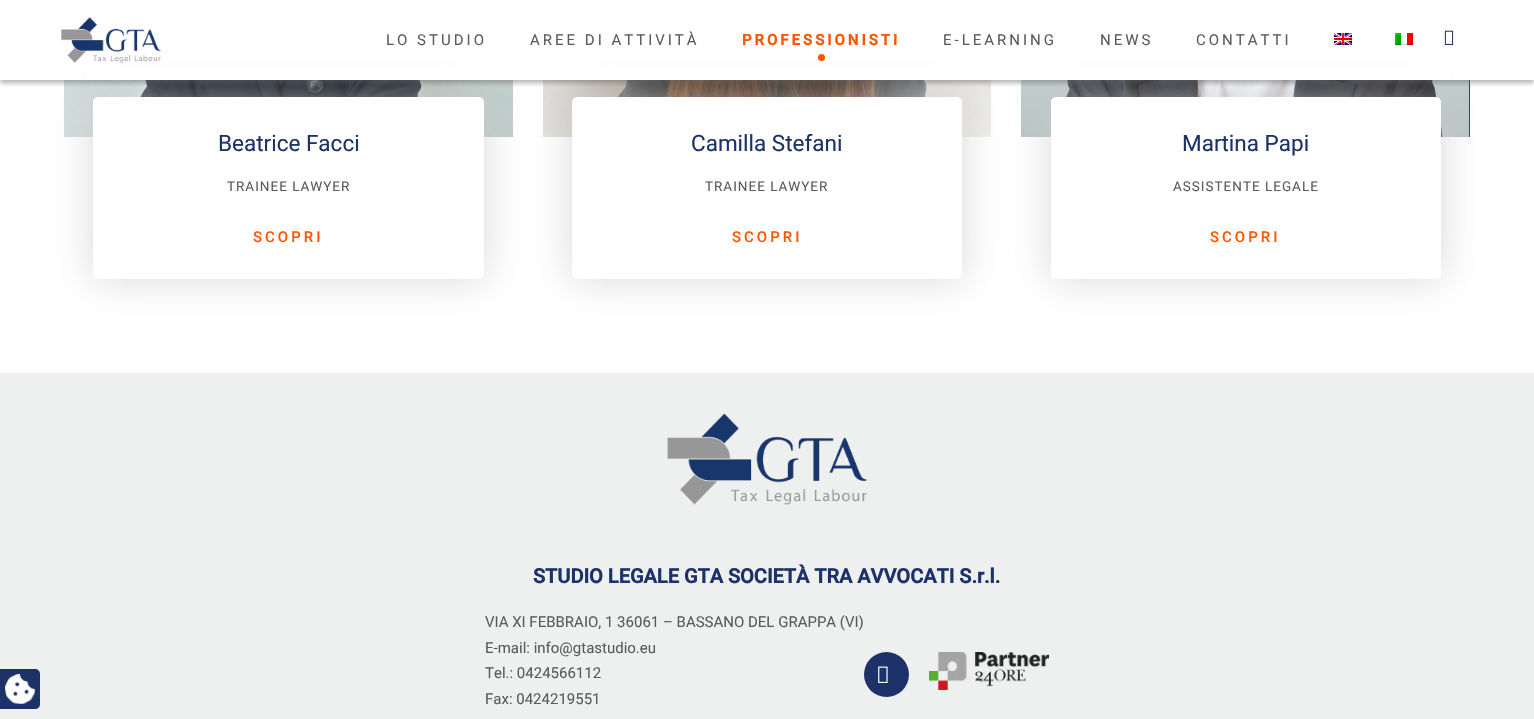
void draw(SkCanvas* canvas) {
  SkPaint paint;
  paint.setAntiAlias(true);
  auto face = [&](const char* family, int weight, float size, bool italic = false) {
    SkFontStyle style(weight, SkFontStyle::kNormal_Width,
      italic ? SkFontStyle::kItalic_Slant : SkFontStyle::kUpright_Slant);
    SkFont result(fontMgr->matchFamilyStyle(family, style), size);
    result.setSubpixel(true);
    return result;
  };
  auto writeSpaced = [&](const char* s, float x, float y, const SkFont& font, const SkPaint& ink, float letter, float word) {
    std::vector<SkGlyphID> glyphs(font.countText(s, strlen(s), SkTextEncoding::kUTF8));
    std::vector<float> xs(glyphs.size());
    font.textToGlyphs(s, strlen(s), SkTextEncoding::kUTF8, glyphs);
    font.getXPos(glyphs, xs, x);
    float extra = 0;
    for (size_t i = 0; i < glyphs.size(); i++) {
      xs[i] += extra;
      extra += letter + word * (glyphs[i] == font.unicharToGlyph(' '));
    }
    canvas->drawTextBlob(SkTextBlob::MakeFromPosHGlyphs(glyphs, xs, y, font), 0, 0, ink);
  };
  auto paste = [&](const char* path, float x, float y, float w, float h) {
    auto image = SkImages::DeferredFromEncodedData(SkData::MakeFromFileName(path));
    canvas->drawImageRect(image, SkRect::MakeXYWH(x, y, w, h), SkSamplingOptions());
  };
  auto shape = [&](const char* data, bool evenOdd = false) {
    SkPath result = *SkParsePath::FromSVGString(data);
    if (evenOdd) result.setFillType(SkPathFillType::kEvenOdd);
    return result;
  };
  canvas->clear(0xffffffff);
  paint.setColor(0xffeeefef);
  canvas->drawRect(SkRect::MakeXYWH(0, 373, 1534, 346), paint);
  paint.setColor(0xff1d3269);
  canvas->drawPath(shape("M0 669H35C38 669 40 671 40 674V704C40 707 38 709 35 709H0Z"), paint);
  paste("img/1.png", 5, 674, 30, 30);
  paste("img/6.png", 64, 80, 449, 57);
  paint.setColor(0xbfcecbcb);
  paint.setMaskFilter(SkMaskFilter::MakeBlur(kNormal_SkBlurStyle, 20));
  canvas->drawRoundRect(SkRect::MakeXYWH(93, 97, 391, 182), 5, 5, paint);
  paint.setMaskFilter(nullptr);
  paste("img/7.png", 543, 80, 448, 57);
  paint.setMaskFilter(SkMaskFilter::MakeBlur(kNormal_SkBlurStyle, 20));
  canvas->drawRoundRect(SkRect::MakeXYWH(572, 97, 390, 182), 5, 5, paint);
  paint.setMaskFilter(nullptr);
  paste("img/8.png", 1021, 80, 449, 57);
  paint.setMaskFilter(SkMaskFilter::MakeBlur(kNormal_SkBlurStyle, 20));
  canvas->drawRoundRect(SkRect::MakeXYWH(1051, 97, 390, 182), 5, 5, paint);
  paint.setMaskFilter(nullptr);
  paint.setColor(0xffffffff);
  canvas->drawRect(SkRect::MakeXYWH(85, 67, 1364, 13), paint);
  canvas->save();
  canvas->clipRect(SkRect::MakeXYWH(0, 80, 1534, 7));
  paint.setColor(0x80666666);
  paint.setMaskFilter(SkMaskFilter::MakeBlur(kNormal_SkBlurStyle, 2.5f));
  canvas->drawRect(SkRect::MakeXYWH(0, 3, 1534, 80), paint);
  paint.setMaskFilter(nullptr);
  canvas->restore();
  paste("img/2.png", 61, 17, 100, 46);
  paint.setColor(0xffff5500);
  canvas->drawCircle(821.5f, 57.5f, 3.5f, paint);
  paste("img/3.png", 1334, 33, 18, 12);
  paste("img/4.png", 1395, 33, 18, 12);
  paste("img/5.png", 1444, 30, 10, 15);
  paint.setColor(0xffffffff);
  canvas->drawRoundRect(SkRect::MakeXYWH(93, 97, 391, 182), 5, 5, paint);
  canvas->drawRoundRect(SkRect::MakeXYWH(572, 97, 390, 182), 5, 5, paint);
  canvas->drawRoundRect(SkRect::MakeXYWH(1051, 97, 390, 182), 5, 5, paint);
  paste("img/9.png", 667, 413, 200, 92);
  paint.setColor(0xff1d3269);
  canvas->drawCircle(886.5f, 674.5f, 22.5f, paint);
  paste("img/10.png", 878, 666, 10, 17);
  paste("img/11.png", 929, 652, 120, 38);
  auto f0 = face("Roboto", 400, 15);
  paint.setColor(0xff595b5e);
  writeSpaced("LO STUDIO", 386, 45, f0, paint, 3, 0);
  writeSpaced("AREE DI ATTIVITÀ", 530, 45, f0, paint, 3, 0);
  auto f1 = face("Roboto", 700, 15);
  paint.setColor(0xffff5500);
  writeSpaced("PROFESSIONISTI", 742, 45, f1, paint, 3, 0);
  paint.setColor(0xff595b5e);
  {
    const struct { const char* s; float x, y; } items[] = {
      {"E-LEARNING", 943, 45},
      {"NEWS", 1100, 45},
      {"CONTATTI", 1196, 45},
    };
    for (auto [s, x, y] : items) {
      writeSpaced(s, x, y, f0, paint, 3, 0);
    }
  }
  auto f2 = face("Roboto", 400, 22.5f);
  paint.setColor(0xff1d3269);
  canvas->drawString("Beatrice Facci", 218, 151, f2, paint);
  auto f3 = face("Roboto", 400, 13.5f);
  paint.setColor(0xff595b5e);
  writeSpaced("TRAINEE LAWYER", 227, 191, f3, paint, 1, 0);
  auto f4 = face("Roboto", 500, 15);
  paint.setColor(0xffff5500);
  writeSpaced("SCOPRI", 253, 242, f4, paint, 3, 0);
  paint.setColor(0xff1d3269);
  canvas->drawString("Camilla Stefani", 691, 151, f2, paint);
  paint.setColor(0xff595b5e);
  writeSpaced("TRAINEE LAWYER", 705, 191, f3, paint, 1, 0);
  paint.setColor(0xffff5500);
  writeSpaced("SCOPRI", 732, 242, f4, paint, 3, 0);
  paint.setColor(0xff1d3269);
  canvas->drawString("Martina Papi", 1182, 151, f2, paint);
  paint.setColor(0xff595b5e);
  writeSpaced("ASSISTENTE LEGALE", 1173, 191, f3, paint, 1, 0);
  paint.setColor(0xffff5500);
  writeSpaced("SCOPRI", 1210, 242, f4, paint, 3, 0);
  auto f5 = face("Roboto", 700, 20);
  paint.setColor(0xff1d3269);
  canvas->drawString("STUDIO LEGALE GTA SOCIETÀ TRA AVVOCATI S.r.l.", 533, 583, f5, paint);
  paint.setColor(0xff595b5e);
  {
    const struct { const char* s; float x, y; } items[] = {
      {"VIA XI FEBBRAIO, 1 36061 – BASSANO DEL GRAPPA (VI)", 485, 627},
      {"E-mail: info@gtastudio.eu", 485, 653},
      {"Tel.: 0424566112", 485, 678},
      {"Fax: 0424219551", 485, 704},
    };
    for (auto [s, x, y] : items) {
      canvas->drawString(s, x, y, f0, paint);
    }
  }
}
